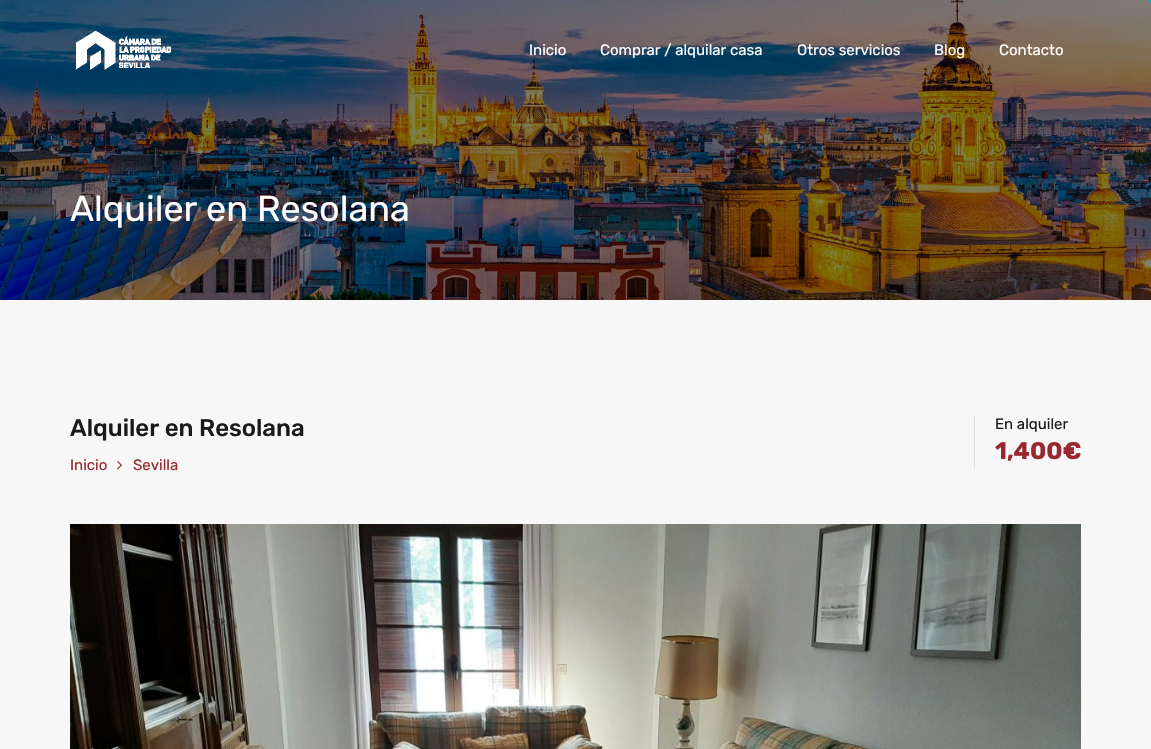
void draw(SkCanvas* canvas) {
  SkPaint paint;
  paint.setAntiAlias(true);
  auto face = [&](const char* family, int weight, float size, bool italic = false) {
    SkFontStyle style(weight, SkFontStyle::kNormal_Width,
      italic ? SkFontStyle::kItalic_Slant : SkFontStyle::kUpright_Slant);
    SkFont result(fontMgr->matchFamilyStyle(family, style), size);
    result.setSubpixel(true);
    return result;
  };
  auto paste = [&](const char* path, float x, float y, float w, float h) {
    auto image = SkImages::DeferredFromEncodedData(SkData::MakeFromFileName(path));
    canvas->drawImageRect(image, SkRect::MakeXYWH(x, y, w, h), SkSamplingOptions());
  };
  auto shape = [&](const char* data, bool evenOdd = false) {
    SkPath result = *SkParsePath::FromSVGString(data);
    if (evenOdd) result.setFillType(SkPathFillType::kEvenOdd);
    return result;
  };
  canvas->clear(0xfff7f7f7);
  paste("img/2.png", 0, 0, 1151, 300);
  canvas->save();
  canvas->clipRect(SkRect::MakeXYWH(0, 0, 1151, 3));
  paint.setStroke(true);
  paint.setStrokeWidth(3.4f);
  paint.setColor(0xff1ea69a);
  canvas->drawPath(shape("M1148.5 1.5H1151"), paint);
  canvas->restore();
  paste("img/1.png", 75, 31, 96, 39);
  paste("img/3.png", 117, 461, 5, 9);
  paint.setStroke(false);
  paint.setColor(0xffdfdfdf);
  canvas->drawRect(SkRect::MakeXYWH(974, 415, 1, 54), paint);
  paste("img/4.png", 70, 524, 1011, 225);
  auto f0 = face("Rubik", 400, 15);
  paint.setColor(0xffffffff);
  {
    const struct { const char* s; float x, y; } items[] = {
      {"Inicio", 529, 55},
      {"Comprar / alquilar casa", 600, 55},
      {"Otros servicios", 797, 55},
      {"Blog", 934, 55},
      {"Contacto", 999, 55},
    };
    for (auto [s, x, y] : items) {
      canvas->drawString(s, x, y, f0, paint);
    }
  }
  auto f1 = face("Rubik", 400, 36);
  canvas->drawString("Alquiler en Resolana", 70, 221, f1, paint);
  auto f2 = face("Rubik", 500, 24);
  paint.setColor(0xff1a1a1a);
  canvas->drawString("Alquiler en Resolana", 70, 436, f2, paint);
  paint.setColor(0xff982730);
  canvas->drawString("Inicio", 70, 470, f0, paint);
  canvas->drawString("Sevilla", 133, 470, f0, paint);
  paint.setColor(0xff1a1a1a);
  canvas->drawString("En alquiler", 995, 429, f0, paint);
  auto f3 = face("Rubik", 700, 24);
  paint.setColor(0xff982730);
  canvas->drawString("1,400€", 995, 459, f3, paint);
}
